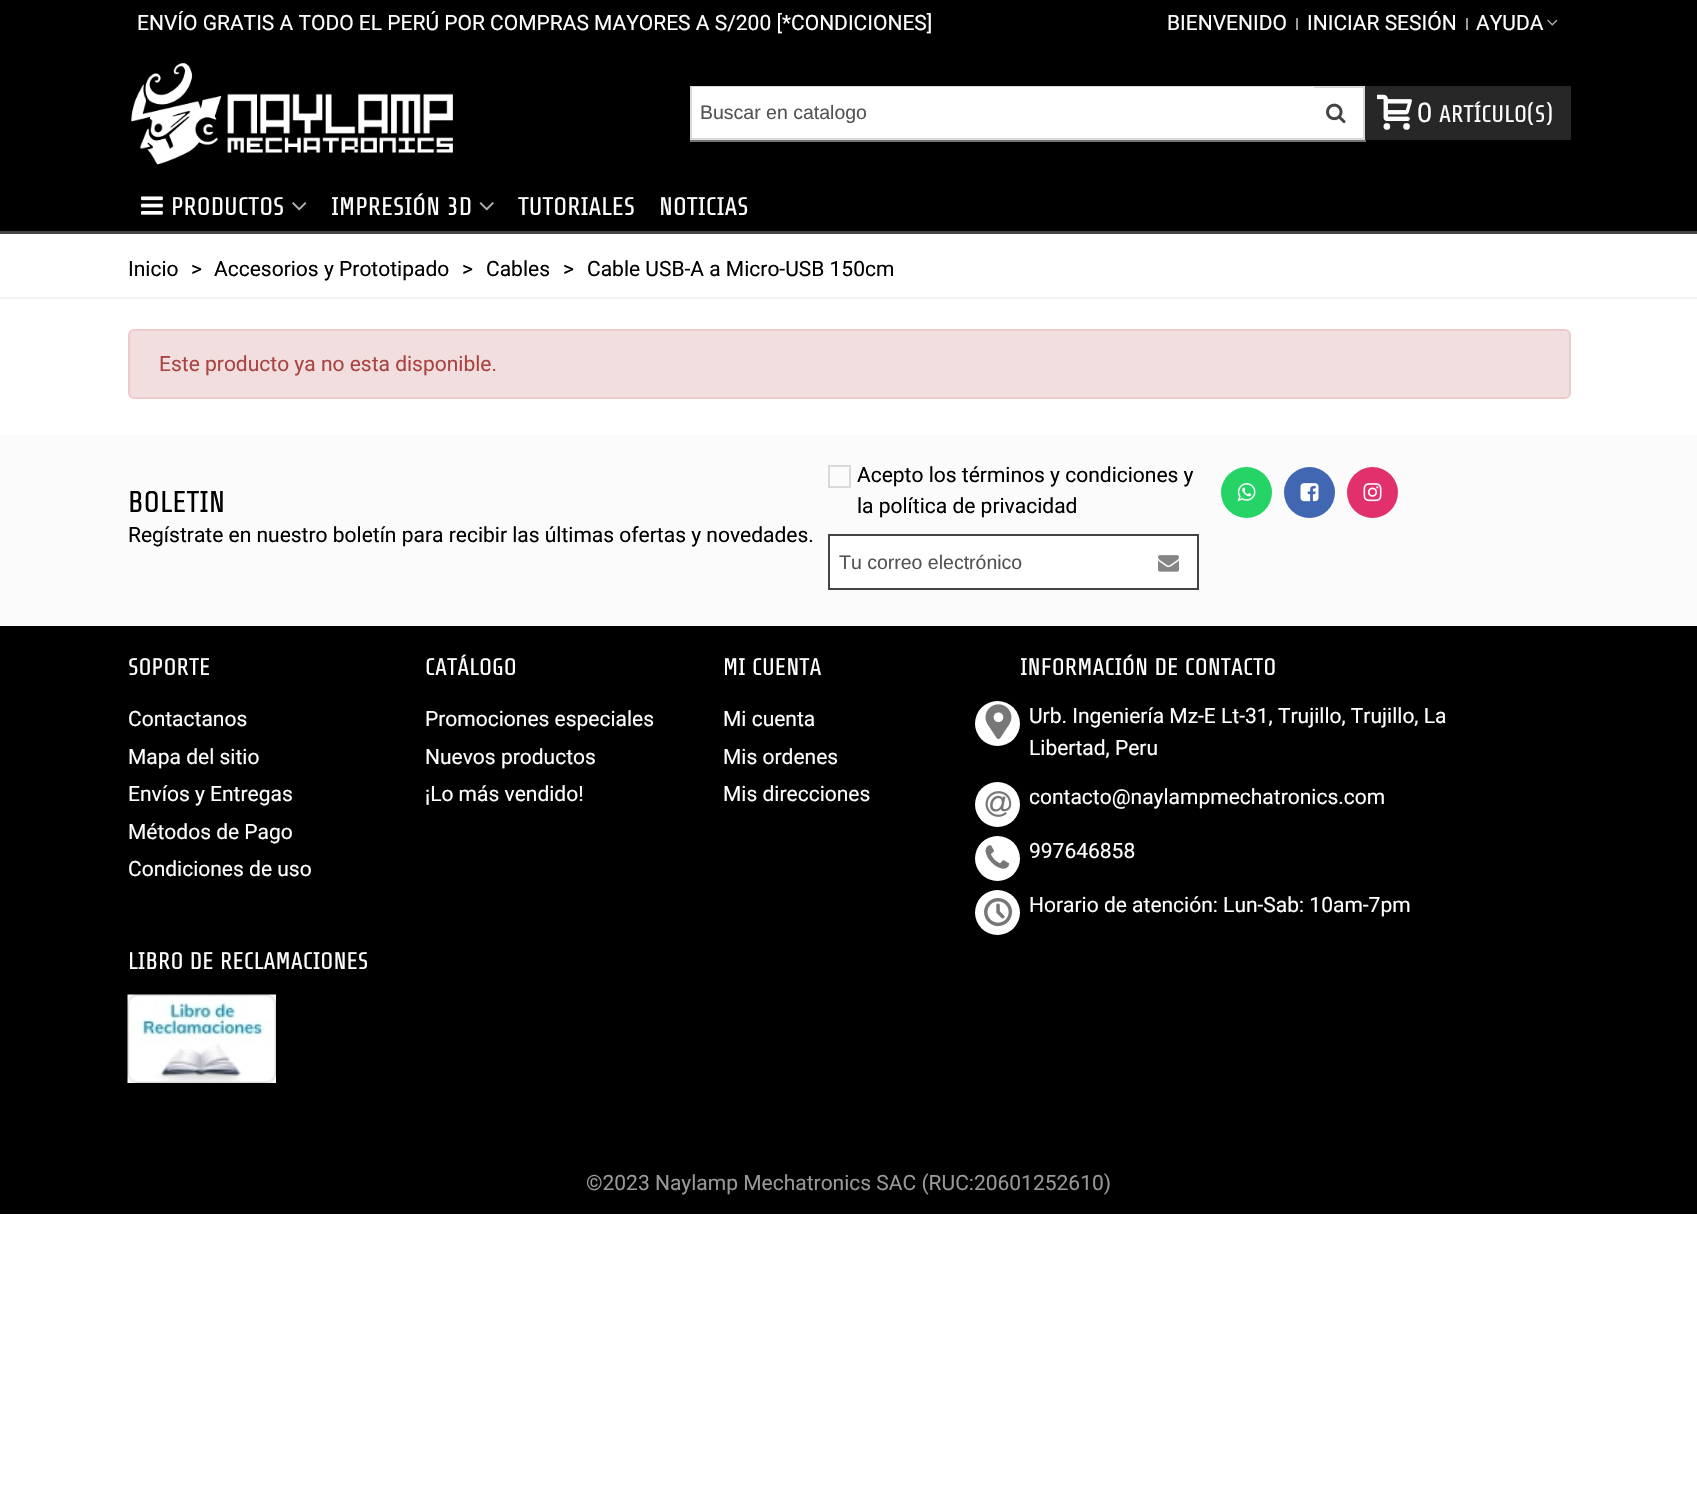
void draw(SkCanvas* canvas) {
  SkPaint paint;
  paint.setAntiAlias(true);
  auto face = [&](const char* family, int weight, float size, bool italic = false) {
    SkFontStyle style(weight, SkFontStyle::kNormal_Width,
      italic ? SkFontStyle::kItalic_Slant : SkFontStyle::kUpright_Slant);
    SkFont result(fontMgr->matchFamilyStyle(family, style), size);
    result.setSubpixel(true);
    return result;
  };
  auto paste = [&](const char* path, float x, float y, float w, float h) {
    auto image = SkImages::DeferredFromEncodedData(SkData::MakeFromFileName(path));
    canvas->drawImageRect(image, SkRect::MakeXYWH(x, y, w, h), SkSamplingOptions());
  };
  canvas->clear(0xffffffff);
  {
    const struct { float x, y, w, h; SkColor color; } items[] = {
      {0, 0, 1697, 231, 0xff000000},
      {1296, 18, 2, 12, 0xff999999},
      {1466, 18, 2, 12, 0xff999999},
    };
    for (auto [x, y, w, h, color] : items) {
      paint.setColor(color);
      canvas->drawRect(SkRect::MakeXYWH(x, y, w, h), paint);
    }
  }
  paste("img/1.png", 1547, 19, 11, 7);
  paste("img/2.png", 131, 63, 322, 102);
  paint.setColor(0xff272727);
  canvas->drawRect(SkRect::MakeXYWH(1365, 86, 206, 54), paint);
  paint.setColor(0xffffffff);
  canvas->drawRect(SkRect::MakeXYWH(1314, 88, 49, 50), paint);
  paint.setStroke(true);
  paint.setStrokeWidth(2);
  paint.setColor(0xffd9d9d9);
  canvas->drawRect(SkRect::MakeXYWH(691, 87, 673, 52), paint);
  paint.setStroke(false);
  paint.setColor(0xffffffff);
  canvas->drawRect(SkRect::MakeXYWH(692, 87, 622, 51), paint);
  paste("img/3.png", 1326, 103, 20, 21);
  paint.setColor(0xff737373);
  canvas->drawRect(SkRect::MakeXYWH(690, 140, 676, 2), paint);
  paste("img/4.png", 1377, 94, 35, 36);
  paint.setColor(0xff444444);
  canvas->drawRect(SkRect::MakeXYWH(0, 231, 1697, 3), paint);
  paste("img/5.png", 141, 196, 22, 19);
  paste("img/6.png", 292, 202, 15, 9);
  paste("img/7.png", 479, 202, 15, 9);
  paint.setColor(0xfff2f2f2);
  canvas->drawRect(SkRect::MakeXYWH(0, 297, 1697, 2), paint);
  paint.setColor(0xfff2dede);
  canvas->drawRoundRect(SkRect::MakeXYWH(129, 330, 1441, 68), 5, 5, paint);
  paint.setStroke(true);
  paint.setColor(0xffebcccc);
  canvas->drawRoundRect(SkRect::MakeXYWH(129, 330, 1441, 68), 5, 5, paint);
  paint.setStroke(false);
  paint.setColor(0xfffbfbfb);
  canvas->drawRect(SkRect::MakeXYWH(0, 435, 1697, 191), paint);
  paint.setStroke(true);
  paint.setColor(0xffd9d9d9);
  canvas->drawRect(SkRect::MakeXYWH(829, 466, 21, 21), paint);
  paint.setStroke(false);
  paint.setColor(0xffffffff);
  canvas->drawRect(SkRect::MakeXYWH(829, 535, 369, 54), paint);
  paint.setStroke(true);
  paint.setColor(0xff444444);
  canvas->drawRect(SkRect::MakeXYWH(829, 535, 369, 54), paint);
  paste("img/8.png", 1158, 555, 21, 17);
  paint.setStroke(false);
  paint.setColor(0xff25d366);
  canvas->drawCircle(1246.5f, 492.5f, 25.5f, paint);
  paste("img/9.png", 1237, 483, 19, 19);
  paint.setColor(0xff4267b2);
  canvas->drawCircle(1309.5f, 492.5f, 25.5f, paint);
  paste("img/10.png", 1300, 483, 19, 19);
  paint.setColor(0xffe1306c);
  canvas->drawCircle(1372.5f, 492.5f, 25.5f, paint);
  paste("img/11.png", 1363, 483, 19, 19);
  paint.setColor(0xff000000);
  canvas->drawRect(SkRect::MakeXYWH(0, 626, 1697, 588), paint);
  paint.setColor(0xffffffff);
  canvas->drawCircle(997.5f, 723.5f, 22.5f, paint);
  paste("img/12.png", 985, 704, 27, 35);
  canvas->drawCircle(997.5f, 804.5f, 22.5f, paint);
  paste("img/13.png", 985, 791, 27, 26);
  canvas->drawCircle(997.5f, 858.5f, 22.5f, paint);
  paste("img/14.png", 985, 845, 25, 24);
  canvas->drawCircle(997.5f, 912.5f, 22.5f, paint);
  paste("img/15.png", 984, 898, 29, 29);
  paste("img/16.png", 127, 994, 149, 89);
  auto f0 = face("Roboto", 400, 21);
  {
    const struct { const char* s; float x, y; } items[] = {
      {"ENVÍO GRATIS A TODO EL PERÚ POR COMPRAS MAYORES A S/200 [*CONDICIONES]", 137, 30},
      {"BIENVENIDO", 1167, 30},
      {"INICIAR SESIÓN", 1307, 30},
      {"AYUDA", 1476, 30},
    };
    for (auto [s, x, y] : items) {
      canvas->drawString(s, x, y, f0, paint);
    }
  }
  auto f1 = face("Liberation Sans", 400, 19.5f);
  paint.setColor(0xff535353);
  canvas->drawString("Buscar en catalogo", 700, 119, f1, paint);
  auto f2 = face("Roboto", 400, 27);
  paint.setColor(0xffffffff);
  canvas->drawString("0", 1417, 122, f2, paint);
  auto f3 = face("Share Tech", 400, 24);
  canvas->drawString("ARTÍCULO(S)", 1439, 122, f3, paint);
  auto f4 = face("Share Tech", 400, 25.5f);
  {
    const struct { const char* s; float x, y; } items[] = {
      {"PRODUCTOS", 171, 215},
      {"IMPRESIÓN 3D", 331, 215},
      {"TUTORIALES", 518, 215},
      {"NOTICIAS", 659, 215},
    };
    for (auto [s, x, y] : items) {
      canvas->drawString(s, x, y, f4, paint);
    }
  }
  paint.setColor(0xff000000);
  {
    const struct { const char* s; float x, y; } items[] = {
      {"Inicio", 128, 276},
      {">", 191, 276},
      {"Accesorios y Prototipado", 214, 276},
      {">", 462, 276},
      {"Cables", 486, 276},
      {">", 563, 276},
      {"Cable USB-A a Micro-USB 150cm", 587, 276},
    };
    for (auto [s, x, y] : items) {
      canvas->drawString(s, x, y, f0, paint);
    }
  }
  paint.setColor(0xffa94442);
  canvas->drawString("Este producto ya no esta disponible.", 159, 371, f0, paint);
  auto f5 = face("Share Tech", 400, 30);
  paint.setColor(0xff000000);
  canvas->drawString("BOLETIN", 128, 512, f5, paint);
  {
    const struct { const char* s; float x, y; } items[] = {
      {"Regístrate en nuestro boletín para recibir las últimas ofertas y novedades.", 128, 542},
      {"Acepto los términos y condiciones y", 857, 482},
      {"la política de privacidad", 857, 513},
    };
    for (auto [s, x, y] : items) {
      canvas->drawString(s, x, y, f0, paint);
    }
  }
  paint.setColor(0xff535353);
  canvas->drawString("Tu correo electrónico", 839, 569, f1, paint);
  paint.setColor(0xffffffff);
  canvas->drawString("SOPORTE", 128, 675, f3, paint);
  {
    const struct { const char* s; float x, y; } items[] = {
      {"Contactanos", 128, 726},
      {"Mapa del sitio", 128, 764},
      {"Envíos y Entregas", 128, 801},
      {"Métodos de Pago", 128, 839},
      {"Condiciones de uso", 128, 876},
    };
    for (auto [s, x, y] : items) {
      canvas->drawString(s, x, y, f0, paint);
    }
  }
  canvas->drawString("CATÁLOGO", 425, 675, f3, paint);
  {
    const struct { const char* s; float x, y; } items[] = {
      {"Promociones especiales", 425, 726},
      {"Nuevos productos", 425, 764},
      {"¡Lo más vendido!", 425, 801},
    };
    for (auto [s, x, y] : items) {
      canvas->drawString(s, x, y, f0, paint);
    }
  }
  canvas->drawString("MI CUENTA", 723, 675, f3, paint);
  {
    const struct { const char* s; float x, y; } items[] = {
      {"Mi cuenta", 723, 726},
      {"Mis ordenes", 723, 764},
      {"Mis direcciones", 723, 801},
    };
    for (auto [s, x, y] : items) {
      canvas->drawString(s, x, y, f0, paint);
    }
  }
  canvas->drawString("INFORMACIÓN DE CONTACTO", 1020, 675, f3, paint);
  {
    const struct { const char* s; float x, y; } items[] = {
      {"Urb. Ingeniería Mz-E Lt-31, Trujillo, Trujillo, La", 1029, 723},
      {"Libertad, Peru", 1029, 755},
      {"contacto@naylampmechatronics.com", 1029, 804},
      {"997646858", 1029, 858},
      {"Horario de atención: Lun-Sab: 10am-7pm", 1029, 912},
    };
    for (auto [s, x, y] : items) {
      canvas->drawString(s, x, y, f0, paint);
    }
  }
  canvas->drawString("LIBRO DE RECLAMACIONES", 128, 969, f3, paint);
  paint.setColor(0xff989898);
  canvas->drawString("©2023 Naylamp Mechatronics SAC (RUC:20601252610)", 586, 1190, f0, paint);
}
